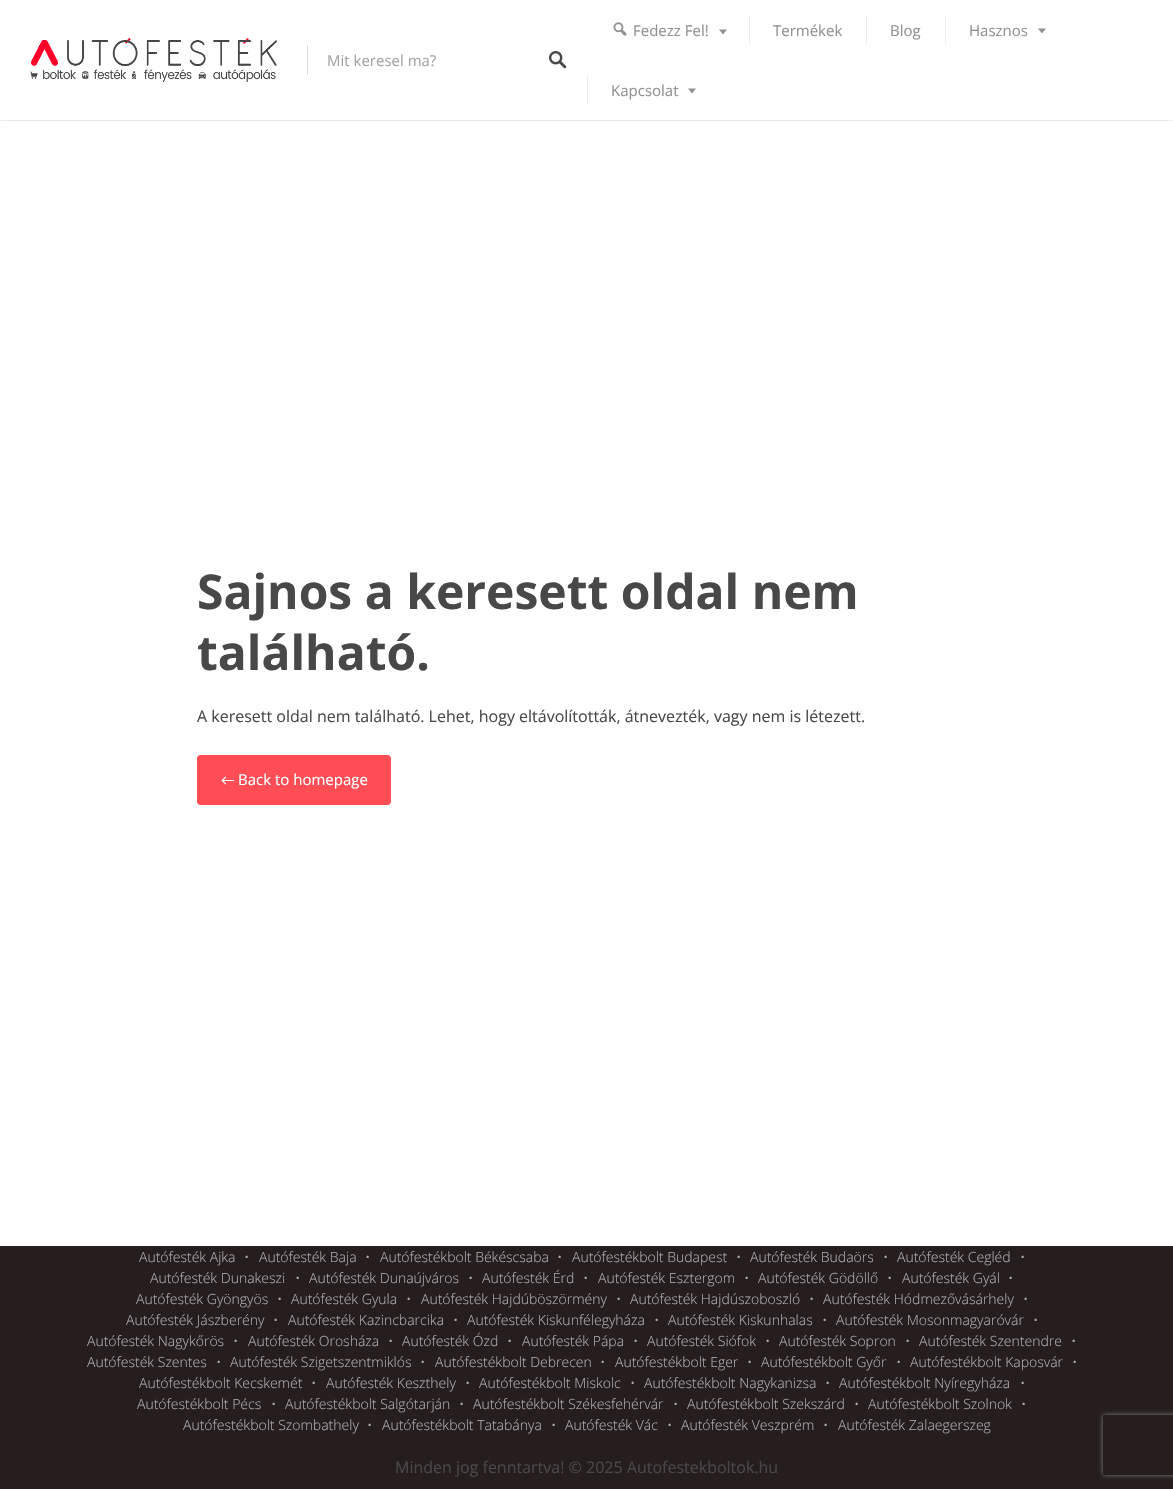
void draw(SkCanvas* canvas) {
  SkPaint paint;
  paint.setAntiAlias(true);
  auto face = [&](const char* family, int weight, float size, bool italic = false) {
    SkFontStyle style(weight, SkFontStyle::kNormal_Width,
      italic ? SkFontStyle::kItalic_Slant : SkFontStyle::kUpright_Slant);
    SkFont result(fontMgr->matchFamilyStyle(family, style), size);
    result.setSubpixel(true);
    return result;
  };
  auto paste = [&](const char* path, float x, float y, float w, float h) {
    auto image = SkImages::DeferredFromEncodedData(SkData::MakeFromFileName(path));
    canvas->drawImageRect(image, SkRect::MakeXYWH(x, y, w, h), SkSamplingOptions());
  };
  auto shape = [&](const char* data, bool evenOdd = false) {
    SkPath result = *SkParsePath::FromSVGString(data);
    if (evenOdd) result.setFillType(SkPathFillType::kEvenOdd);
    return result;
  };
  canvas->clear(0xffffffff);
  canvas->save();
  canvas->clipRect(SkRect::MakeXYWH(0, 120, 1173, 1));
  paint.setColor(0x40000000);
  paint.setMaskFilter(SkMaskFilter::MakeBlur(kNormal_SkBlurStyle, 1));
  canvas->drawRect(SkRect::MakeXYWH(0, 0, 1173, 120), paint);
  paint.setMaskFilter(nullptr);
  canvas->restore();
  paste("img/1.png", 30, 38, 247, 44);
  paint.setColor(0xffdadada);
  canvas->drawRect(SkRect::MakeXYWH(307, 45, 1, 30), paint);
  paste("img/2.png", 549, 51, 18, 18);
  paste("img/3.png", 613, 22, 14, 14);
  paint.setColor(0xff919191);
  canvas->drawPath(shape("M719 29.5H727L723 34.5Z"), paint);
  {
    const struct { float x, y, w, h; SkColor color; } items[] = {
      {749, 16, 1, 28, 0xffececec},
      {866, 16, 1, 28, 0xffececec},
      {945, 16, 1, 28, 0xffececec},
    };
    for (auto [x, y, w, h, color] : items) {
      paint.setColor(color);
      canvas->drawRect(SkRect::MakeXYWH(x, y, w, h), paint);
    }
  }
  paint.setColor(0xff919191);
  canvas->drawPath(shape("M1038 28.5H1046L1042 33.5Z"), paint);
  paint.setColor(0xffececec);
  canvas->drawRect(SkRect::MakeXYWH(587, 76, 1, 28), paint);
  paint.setColor(0xff919191);
  canvas->drawPath(shape("M688 88.5H696L692 93.5Z"), paint);
  paint.setColor(0xffff4d55);
  canvas->drawRoundRect(SkRect::MakeXYWH(197, 755, 194, 50), 4, 4, paint);
  paint.setColor(0xff261e1e);
  canvas->drawRect(SkRect::MakeXYWH(0, 1246, 1173, 243), paint);
  canvas->save();
  canvas->clipPath(shape("M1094 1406H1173V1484H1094ZM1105 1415H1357C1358 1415 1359 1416 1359 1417V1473C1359 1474 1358 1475 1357 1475H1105C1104 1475 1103 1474 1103 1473V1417C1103 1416 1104 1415 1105 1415Z", true), true);
  paint.setColor(0xff808080);
  paint.setMaskFilter(SkMaskFilter::MakeBlur(kNormal_SkBlurStyle, 2.5f));
  canvas->drawRoundRect(SkRect::MakeXYWH(1103, 1415, 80, 60), 2, 2, paint);
  paint.setMaskFilter(nullptr);
  canvas->restore();
  auto f0 = face("Open Sans", 400, 15);
  paint.setColor(0xffa4a4a4);
  canvas->drawString("Mit keresel ma?", 327, 66, f0, paint);
  paint.setColor(0xff919191);
  {
    const struct { const char* s; float x, y; } items[] = {
      {"Fedezz Fel!", 633, 36},
      {"Termékek", 773, 36},
      {"Blog", 890, 36},
      {"Hasznos", 969, 36},
      {"Kapcsolat", 611, 96},
    };
    for (auto [s, x, y] : items) {
      canvas->drawString(s, x, y, f0, paint);
    }
  }
  auto f1 = face("Open Sans", 700, 48);
  paint.setColor(0xff484848);
  canvas->drawString("Sajnos a keresett oldal nem", 197, 609, f1, paint);
  canvas->drawString("található.", 197, 670, f1, paint);
  auto f2 = face("Open Sans", 400, 16);
  canvas->drawString("A keresett oldal nem található. Lehet, hogy eltávolították, átnevezték, vagy nem is létezett.", 197, 722, f2, paint);
  auto f3 = face("Carlito", 400, 15);
  paint.setColor(0xffffffff);
  canvas->drawString("←", 221, 785, f3, paint);
  canvas->drawString("Back to homepage", 238, 785, f0, paint);
  auto f4 = face("Open Sans", 300, 14);
  paint.setColor(0xffadadb2);
  {
    const struct { const char* s; float x, y; } items[] = {
      {"Autófesték Ajka", 139, 1262},
      {"•", 244, 1262},
      {"Autófesték Baja", 259, 1262},
      {"•", 365, 1262},
      {"Autófestékbolt Békéscsaba", 380, 1262},
      {"•", 557, 1262},
      {"Autófestékbolt Budapest", 572, 1262},
      {"•", 736, 1262},
      {"Autófesték Budaörs", 750, 1262},
      {"•", 883, 1262},
      {"Autófesték Cegléd", 897, 1262},
      {"•", 1020, 1262},
      {"Autófesték Dunakeszi", 150, 1283},
      {"•", 295, 1283},
      {"Autófesték Dunaújváros", 309, 1283},
      {"•", 468, 1283},
      {"Autófesték Érd", 482, 1283},
      {"•", 583, 1283},
      {"Autófesték Esztergom", 598, 1283},
      {"•", 744, 1283},
      {"Autófesték Gödöllő", 758, 1283},
      {"•", 887, 1283},
      {"Autófesték Gyál", 902, 1283},
      {"•", 1008, 1283},
      {"Autófesték Gyöngyös", 136, 1304},
      {"•", 277, 1304},
      {"Autófesték Gyula", 291, 1304},
      {"•", 406, 1304},
      {"Autófesték Hajdúböszörmény", 421, 1304},
      {"•", 616, 1304},
      {"Autófesték Hajdúszoboszló", 630, 1304},
      {"•", 809, 1304},
      {"Autófesték Hódmezővásárhely", 823, 1304},
      {"•", 1023, 1304},
      {"Autófesték Jászberény", 126, 1325},
      {"•", 273, 1325},
      {"Autófesték Kazincbarcika", 288, 1325},
      {"•", 453, 1325},
      {"Autófesték Kiskunfélegyháza", 467, 1325},
      {"•", 654, 1325},
      {"Autófesték Kiskunhalas", 668, 1325},
      {"•", 822, 1325},
      {"Autófesték Mosonmagyaróvár", 836, 1325},
      {"•", 1033, 1325},
      {"Autófesték Nagykőrös", 87, 1346},
      {"•", 233, 1346},
      {"Autófesték Orosháza", 248, 1346},
      {"•", 388, 1346},
      {"Autófesték Ózd", 402, 1346},
      {"•", 507, 1346},
      {"Autófesték Pápa", 522, 1346},
      {"•", 633, 1346},
      {"Autófesték Siófok", 647, 1346},
      {"•", 765, 1346},
      {"Autófesték Sopron", 779, 1346},
      {"•", 905, 1346},
      {"Autófesték Szentendre", 919, 1346},
      {"•", 1071, 1346},
      {"Autófesték Szentes", 87, 1367},
      {"•", 216, 1367},
      {"Autófesték Szigetszentmiklós", 230, 1367},
      {"•", 420, 1367},
      {"Autófestékbolt Debrecen", 435, 1367},
      {"•", 600, 1367},
      {"Autófestékbolt Eger", 615, 1367},
      {"•", 747, 1367},
      {"Autófestékbolt Győr", 761, 1367},
      {"•", 896, 1367},
      {"Autófestékbolt Kaposvár", 910, 1367},
      {"•", 1072, 1367},
      {"Autófestékbolt Kecskemét", 139, 1388},
      {"•", 311, 1388},
      {"Autófesték Keszthely", 326, 1388},
      {"•", 465, 1388},
      {"Autófestékbolt Miskolc", 479, 1388},
      {"•", 630, 1388},
      {"Autófestékbolt Nagykanizsa", 644, 1388},
      {"•", 825, 1388},
      {"Autófestékbolt Nyíregyháza", 839, 1388},
      {"•", 1020, 1388},
      {"Autófestékbolt Pécs", 137, 1409},
      {"•", 271, 1409},
      {"Autófestékbolt Salgótarján", 285, 1409},
      {"•", 459, 1409},
      {"Autófestékbolt Székesfehérvár", 473, 1409},
      {"•", 673, 1409},
      {"Autófestékbolt Szekszárd", 687, 1409},
      {"•", 854, 1409},
      {"Autófestékbolt Szolnok", 868, 1409},
      {"•", 1021, 1409},
      {"Autófestékbolt Szombathely", 183, 1430},
      {"•", 367, 1430},
      {"Autófestékbolt Tatabánya", 382, 1430},
      {"•", 551, 1430},
      {"Autófesték Vác", 565, 1430},
      {"•", 667, 1430},
      {"Autófesték Veszprém", 681, 1430},
      {"•", 823, 1430},
      {"Autófesték Zalaegerszeg", 838, 1430},
    };
    for (auto [s, x, y] : items) {
      canvas->drawString(s, x, y, f4, paint);
    }
  }
  paint.setColor(0xff484848);
  canvas->drawString("Minden jog fenntartva! © 2025 Autofestekboltok.hu", 395, 1473, f2, paint);
}
